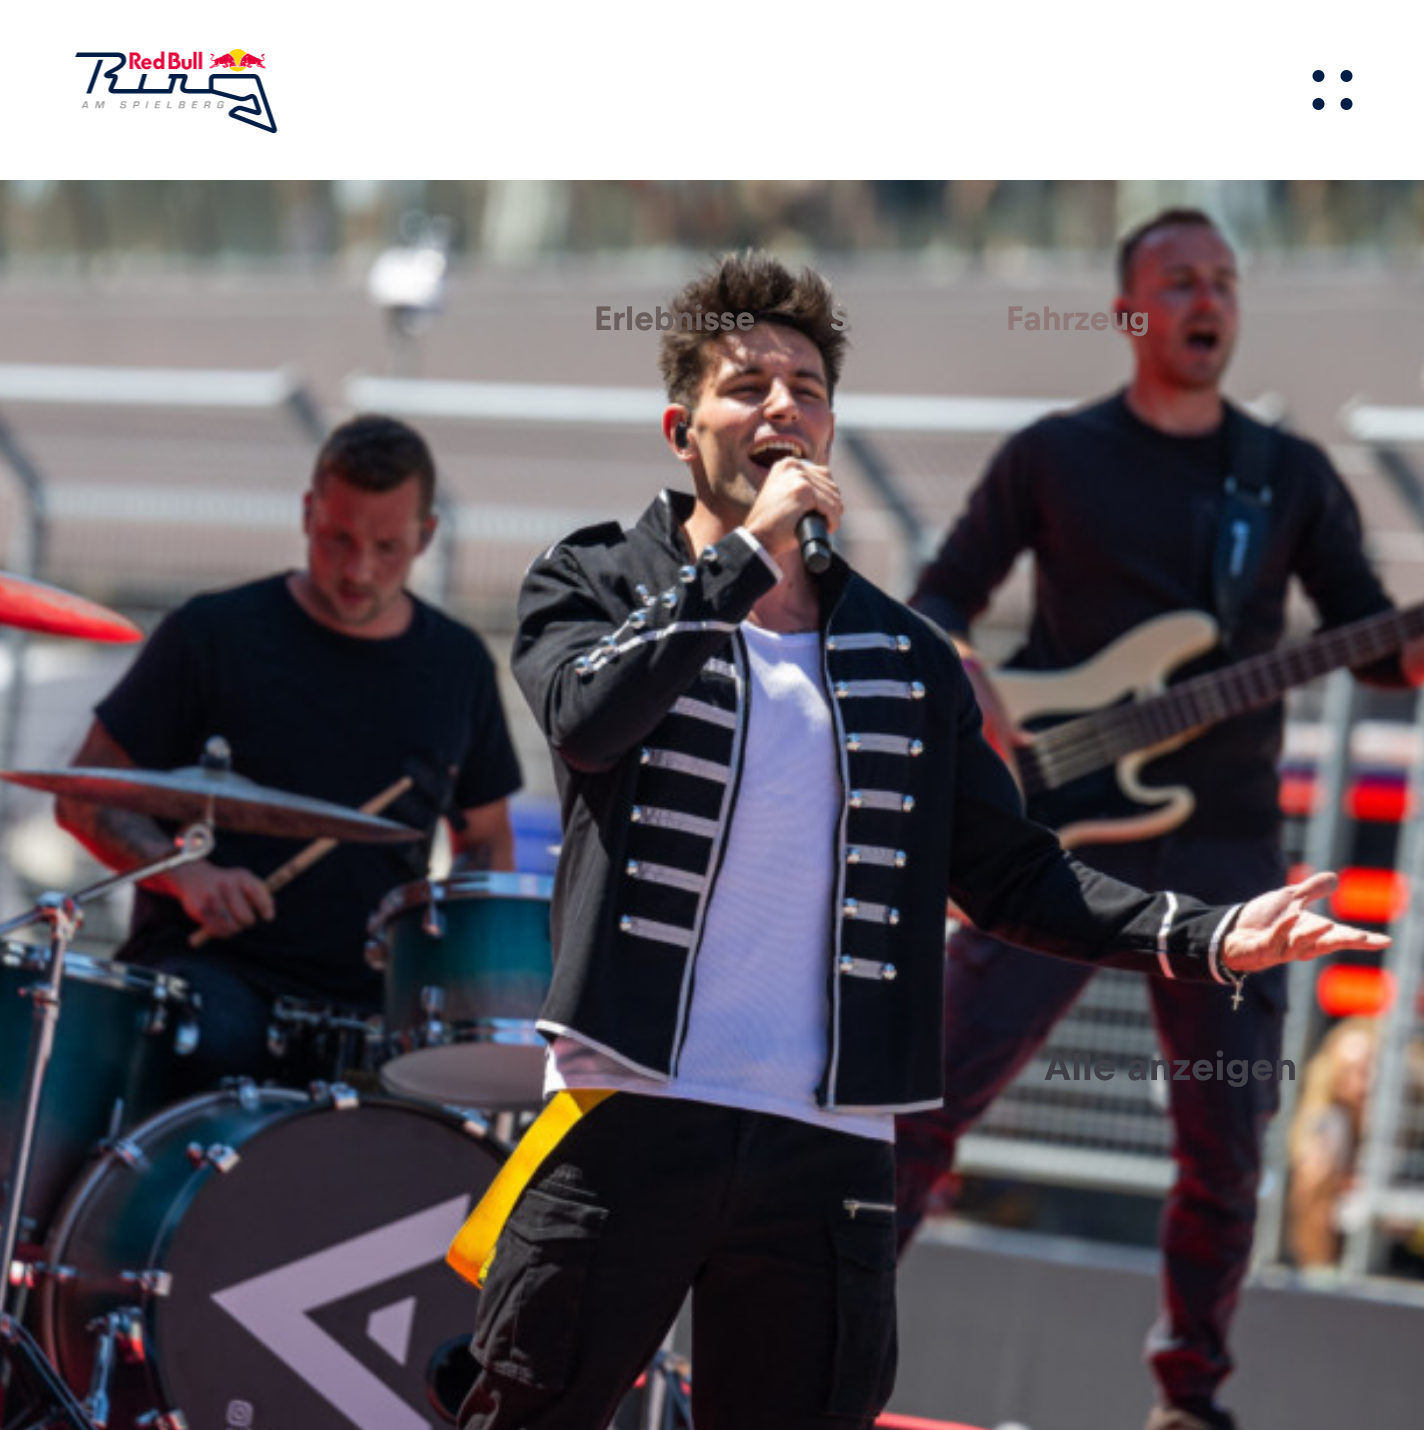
void draw(SkCanvas* canvas) {
  SkPaint paint;
  paint.setAntiAlias(true);
  auto face = [&](const char* family, int weight, float size, bool italic = false) {
    SkFontStyle style(weight, SkFontStyle::kNormal_Width,
      italic ? SkFontStyle::kItalic_Slant : SkFontStyle::kUpright_Slant);
    SkFont result(fontMgr->matchFamilyStyle(family, style), size);
    result.setSubpixel(true);
    return result;
  };
  auto paste = [&](const char* path, float x, float y, float w, float h) {
    auto image = SkImages::DeferredFromEncodedData(SkData::MakeFromFileName(path));
    canvas->drawImageRect(image, SkRect::MakeXYWH(x, y, w, h), SkSamplingOptions());
  };
  canvas->clear(0xffffffff);
  paste("img/1.png", 0, 180, 1424, 1250);
  paste("img/2.png", 74, 49, 204, 85);
  paste("img/3.png", 1312, 70, 41, 40);
  auto f0 = face("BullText", 700, 35);
  paint.setColor(0xff6a5f5d);
  canvas->drawString("Erlebnisse", 594, 330, f0, paint);
  paint.setColor(0xff928c8b);
  canvas->drawString("S", 830, 330, f0, paint);
  paint.setColor(0xff8e7878);
  canvas->drawString("Fahrzeug", 1006, 330, f0, paint);
  auto f1 = face("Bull", 700, 40);
  paint.setColor(0xff403e46);
  canvas->drawString("Alle anzeigen", 1044, 1080, f1, paint);
}
